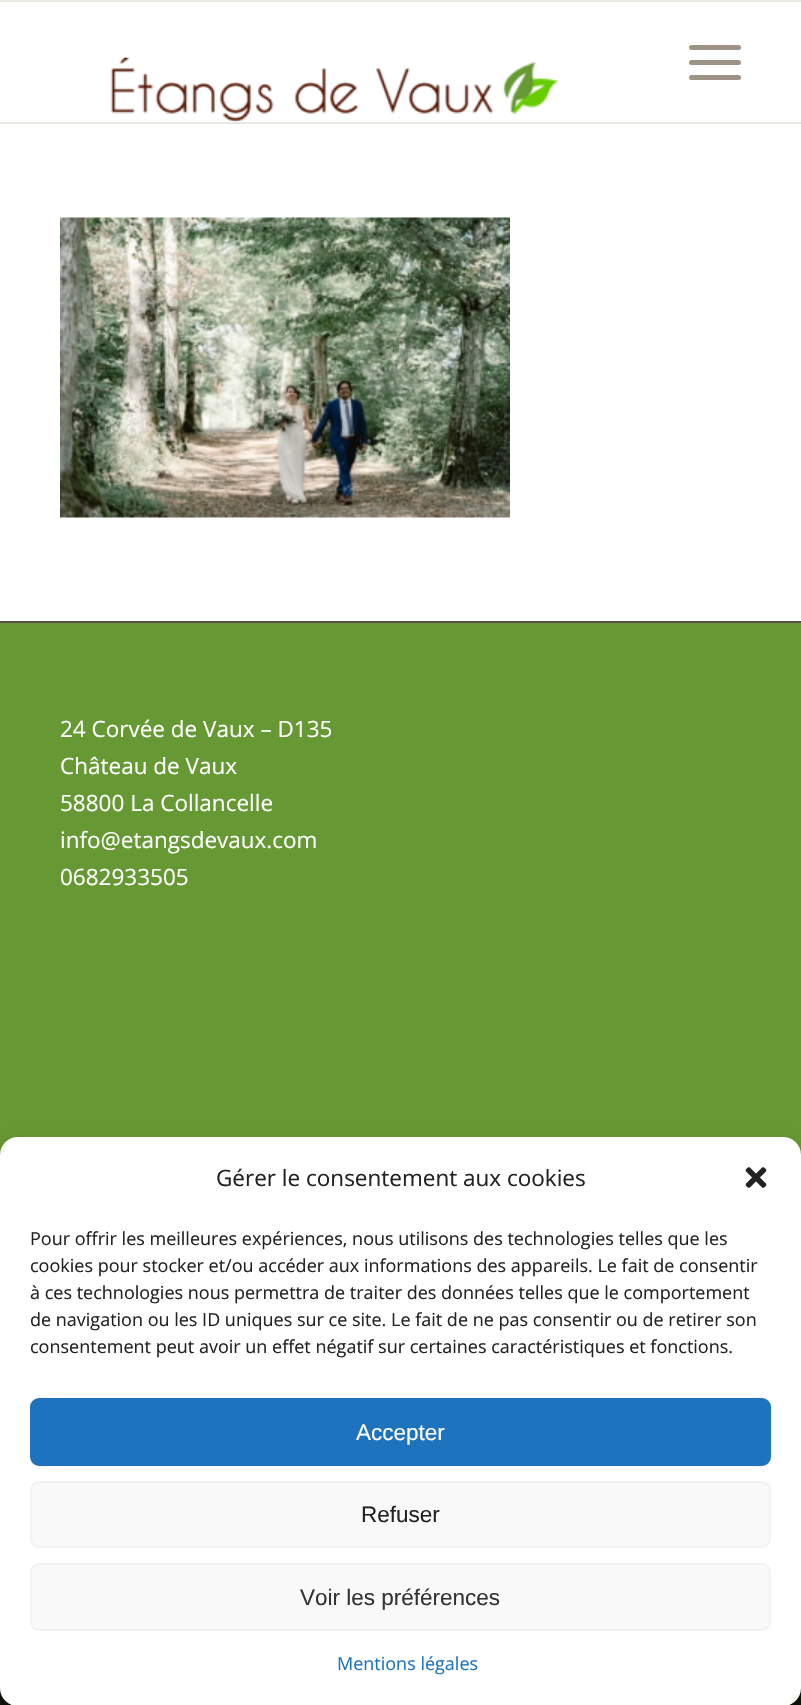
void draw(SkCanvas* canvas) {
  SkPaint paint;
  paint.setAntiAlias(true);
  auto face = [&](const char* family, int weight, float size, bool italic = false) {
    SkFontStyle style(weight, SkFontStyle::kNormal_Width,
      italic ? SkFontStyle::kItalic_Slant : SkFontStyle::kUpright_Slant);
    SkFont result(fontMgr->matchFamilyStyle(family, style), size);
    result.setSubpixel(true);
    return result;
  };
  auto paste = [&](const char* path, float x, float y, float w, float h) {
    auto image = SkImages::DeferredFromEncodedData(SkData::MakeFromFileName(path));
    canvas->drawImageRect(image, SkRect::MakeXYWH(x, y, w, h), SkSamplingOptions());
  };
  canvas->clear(0xffffffff);
  paint.setColor(0xffebe8e2);
  canvas->drawRect(SkRect::MakeXYWH(0, 0, 801, 2), paint);
  canvas->drawRect(SkRect::MakeXYWH(0, 122, 801, 2), paint);
  paste("img/1.png", 110, 57, 448, 65);
  paint.setColor(0xff9c9288);
  canvas->drawRoundRect(SkRect::MakeXYWH(689, 60, 52, 5), 2.5f, 2.5f, paint);
  canvas->drawRoundRect(SkRect::MakeXYWH(689, 45, 52, 5), 2.5f, 2.5f, paint);
  canvas->drawRoundRect(SkRect::MakeXYWH(689, 75, 52, 5), 2.5f, 2.5f, paint);
  paste("img/2.png", 60, 217, 450, 301);
  {
    const struct { float x, y, w, h; SkColor color; } items[] = {
      {0, 623, 801, 532, 0xff669933},
      {0, 1688, 801, 17, 0xff0f1708},
      {0, 621, 801, 2, 0xff575149},
    };
    for (auto [x, y, w, h, color] : items) {
      paint.setColor(color);
      canvas->drawRect(SkRect::MakeXYWH(x, y, w, h), paint);
    }
  }
  paint.setColor(0x3b000000);
  paint.setMaskFilter(SkMaskFilter::MakeBlur(kNormal_SkBlurStyle, 4.5f));
  canvas->drawRoundRect(SkRect::MakeXYWH(0, 1146, 801, 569), 18, 18, paint);
  paint.setMaskFilter(nullptr);
  paint.setColor(0x30000000);
  paint.setMaskFilter(SkMaskFilter::MakeBlur(kNormal_SkBlurStyle, 15));
  canvas->drawRoundRect(SkRect::MakeXYWH(0, 1152, 801, 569), 18, 18, paint);
  paint.setMaskFilter(nullptr);
  paint.setColor(0xffffffff);
  canvas->drawRoundRect(SkRect::MakeXYWH(0, 1137, 801, 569), 18, 18, paint);
  paste("img/3.png", 745, 1167, 22, 21);
  paint.setColor(0xff1e73be);
  canvas->drawRoundRect(SkRect::MakeXYWH(31, 1399, 739, 66), 8, 8, paint);
  paint.setStroke(true);
  paint.setStrokeWidth(2);
  canvas->drawRoundRect(SkRect::MakeXYWH(31, 1399, 739, 66), 8, 8, paint);
  paint.setStroke(false);
  paint.setColor(0xfff9f9f9);
  canvas->drawRoundRect(SkRect::MakeXYWH(31, 1482, 739, 65), 8, 8, paint);
  paint.setStroke(true);
  paint.setColor(0xfff2f2f2);
  canvas->drawRoundRect(SkRect::MakeXYWH(31, 1482, 739, 65), 8, 8, paint);
  paint.setStroke(false);
  paint.setColor(0xfff9f9f9);
  canvas->drawRoundRect(SkRect::MakeXYWH(31, 1564, 739, 66), 8, 8, paint);
  paint.setStroke(true);
  paint.setColor(0xfff2f2f2);
  canvas->drawRoundRect(SkRect::MakeXYWH(31, 1564, 739, 66), 8, 8, paint);
  auto f0 = face("Open Sans", 400, 22.5f);
  paint.setStroke(false);
  paint.setColor(0xffffffff);
  {
    const struct { const char* s; float x, y; } items[] = {
      {"24 Corvée de Vaux – D135", 60, 737},
      {"Château de Vaux", 60, 774},
      {"58800 La Collancelle", 60, 811},
      {"info@etangsdevaux.com", 60, 848},
      {"0682933505", 60, 885},
    };
    for (auto [s, x, y] : items) {
      canvas->drawString(s, x, y, f0, paint);
    }
  }
  paint.setColor(0xff222222);
  canvas->drawString("Gérer le consentement aux cookies", 216, 1186, f0, paint);
  auto f1 = face("Open Sans", 400, 18);
  {
    const struct { const char* s; float x, y; } items[] = {
      {"Pour offrir les meilleures expériences, nous utilisons des technologies telles que les", 30, 1245},
      {"cookies pour stocker et/ou accéder aux informations des appareils. Le fait de consentir", 30, 1272},
      {"à ces technologies nous permettra de traiter des données telles que le comportement", 30, 1299},
      {"de navigation ou les ID uniques sur ce site. Le fait de ne pas consentir ou de retirer son", 30, 1326},
      {"consentement peut avoir un effet négatif sur certaines caractéristiques et fonctions.", 30, 1353},
    };
    for (auto [s, x, y] : items) {
      canvas->drawString(s, x, y, f1, paint);
    }
  }
  auto f2 = face("Liberation Sans", 400, 22.5f);
  paint.setColor(0xffffffff);
  canvas->drawString("Accepter", 356, 1440, f2, paint);
  paint.setColor(0xff222222);
  canvas->drawString("Refuser", 361, 1522, f2, paint);
  paint.setColor(0xff333333);
  canvas->drawString("Voir les préférences", 300, 1605, f2, paint);
  paint.setColor(0xff1e73be);
  canvas->drawString("Mentions légales", 337, 1670, f1, paint);
}
